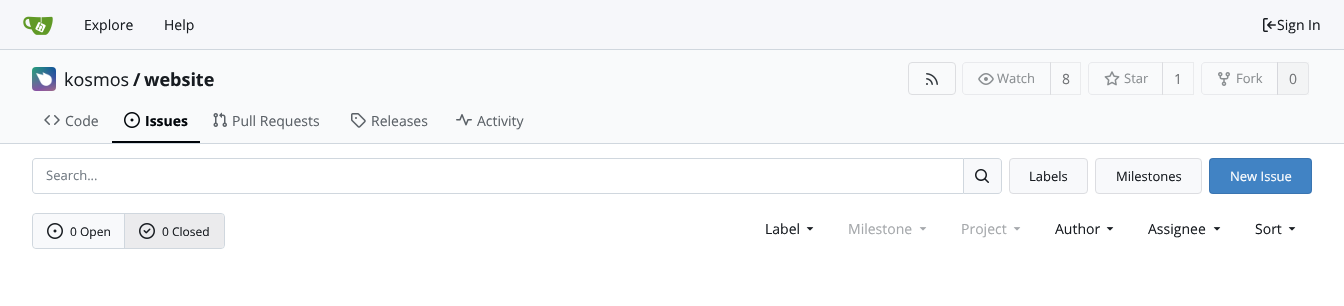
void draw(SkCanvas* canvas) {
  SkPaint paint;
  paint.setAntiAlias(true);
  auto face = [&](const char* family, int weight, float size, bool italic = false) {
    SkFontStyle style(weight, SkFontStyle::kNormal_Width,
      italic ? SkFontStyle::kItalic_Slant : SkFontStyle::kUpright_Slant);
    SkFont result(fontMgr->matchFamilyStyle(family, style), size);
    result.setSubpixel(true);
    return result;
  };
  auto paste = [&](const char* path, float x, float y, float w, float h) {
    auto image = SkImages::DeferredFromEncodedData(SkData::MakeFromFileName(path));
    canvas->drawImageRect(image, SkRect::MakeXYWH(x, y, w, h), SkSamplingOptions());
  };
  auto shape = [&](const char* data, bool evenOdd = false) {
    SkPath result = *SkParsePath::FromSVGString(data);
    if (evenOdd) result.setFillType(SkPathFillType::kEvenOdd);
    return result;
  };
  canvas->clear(0xffffffff);
  paint.setColor(0xfff6f7fa);
  canvas->drawRect(SkRect::MakeXYWH(0, 0, 1344, 49), paint);
  paint.setColor(0xffd0d7de);
  canvas->drawRect(SkRect::MakeXYWH(0, 49, 1344, 1), paint);
  paste("img/1.png", 23, 16, 30, 19);
  paste("img/2.png", 1263, 18, 13, 14);
  paint.setColor(0xfff9fafb);
  canvas->drawRect(SkRect::MakeXYWH(0, 50, 1344, 93), paint);
  paste("img/3.png", 32, 67, 24, 24);
  paint.setStroke(true);
  paint.setStrokeWidth(1);
  paint.setColor(0xffdddee1);
  canvas->drawRoundRect(SkRect::MakeXYWH(908.5f, 62.5f, 47, 32), 3.5f, 3.5f, paint);
  paste("img/4.png", 926, 73, 12, 12);
  paint.setColor(0xffe9eaed);
  canvas->drawPath(shape("M966 62.5H1050.5V94.5H966C964 94.5 962.5 93 962.5 91V66C962.5 64 964 62.5 966 62.5Z"), paint);
  paste("img/5.png", 978, 73, 16, 12);
  paint.setColor(0x0f000017);
  canvas->drawRect(SkRect::MakeXYWH(1050.5f, 62.5f, 30, 32), paint);
  paint.setColor(0xffe9eaed);
  canvas->drawPath(shape("M1092 62.5H1162.5V94.5H1092C1090 94.5 1088.5 93 1088.5 91V66C1088.5 64 1090 62.5 1092 62.5Z"), paint);
  paste("img/6.png", 1104, 71, 16, 15);
  paint.setColor(0x0f000017);
  canvas->drawRect(SkRect::MakeXYWH(1162.5f, 62.5f, 31, 32), paint);
  paint.setColor(0xffe9eaed);
  canvas->drawPath(shape("M1205 62.5H1277.5V94.5H1205C1203 94.5 1201.5 93 1201.5 91V66C1201.5 64 1203 62.5 1205 62.5Z"), paint);
  paste("img/7.png", 1218, 72, 12, 14);
  paint.setStroke(false);
  paint.setColor(0x0a707171);
  canvas->drawRect(SkRect::MakeXYWH(1277, 62, 32, 33), paint);
  paint.setStroke(true);
  paint.setColor(0x1c70717e);
  canvas->drawPath(shape("M1277.5 62.5H1305C1307 62.5 1308.5 64 1308.5 66V91C1308.5 93 1307 94.5 1305 94.5H1277.5Z"), paint);
  paste("img/8.png", 44, 115, 16, 10);
  paint.setStroke(false);
  paint.setColor(0xff01050a);
  canvas->drawRect(SkRect::MakeXYWH(112, 141, 88, 2), paint);
  paste("img/9.png", 124, 112, 16, 16);
  paste("img/10.png", 213, 112, 14, 15);
  paste("img/11.png", 351, 113, 15, 15);
  paste("img/12.png", 456, 114, 16, 12);
  paint.setColor(0xffd0d7de);
  canvas->drawRect(SkRect::MakeXYWH(0, 143, 1344, 1), paint);
  canvas->drawPath(shape("M36 158H963V194H36C34 194 32 192 32 190V162C32 160 34 158 36 158ZM36 159H963V193H36C34 193 33 192 33 190V162C33 160 34 159 36 159Z", true), paint);
  paint.setColor(0xfff8f9fb);
  canvas->drawPath(shape("M963.5 158.5H998C1000 158.5 1001.5 160 1001.5 162V190C1001.5 192 1000 193.5 998 193.5H963.5Z"), paint);
  paint.setStroke(true);
  paint.setColor(0xffd0d7de);
  canvas->drawPath(shape("M963.5 158.5H998C1000 158.5 1001.5 160 1001.5 162V190C1001.5 192 1000 193.5 998 193.5H963.5Z"), paint);
  paste("img/13.png", 975, 169, 14, 14);
  paint.setStroke(false);
  paint.setColor(0xfff8f9fb);
  canvas->drawRoundRect(SkRect::MakeXYWH(1009.5f, 158.5f, 78, 35), 3.5f, 3.5f, paint);
  paint.setStroke(true);
  paint.setColor(0xffdcdde1);
  canvas->drawRoundRect(SkRect::MakeXYWH(1009.5f, 158.5f, 78, 35), 3.5f, 3.5f, paint);
  paint.setStroke(false);
  paint.setColor(0xfff8f9fb);
  canvas->drawRoundRect(SkRect::MakeXYWH(1095.5f, 158.5f, 106, 35), 3.5f, 3.5f, paint);
  paint.setStroke(true);
  paint.setColor(0xffdcdde1);
  canvas->drawRoundRect(SkRect::MakeXYWH(1095.5f, 158.5f, 106, 35), 3.5f, 3.5f, paint);
  paint.setStroke(false);
  paint.setColor(0xff4183c4);
  canvas->drawRoundRect(SkRect::MakeXYWH(1209, 158, 103, 36), 4, 4, paint);
  paint.setStroke(true);
  paint.setColor(0x1c000017);
  canvas->drawRoundRect(SkRect::MakeXYWH(1209.5f, 158.5f, 102, 35), 3.5f, 3.5f, paint);
  paint.setColor(0xffd0d7de);
  canvas->drawRoundRect(SkRect::MakeXYWH(32.5f, 213.5f, 192, 35), 3.5f, 3.5f, paint);
  paint.setStroke(false);
  paint.setColor(0xfff8f9fb);
  canvas->drawPath(shape("M37 214H125V248H37C35 248 33 246 33 244V218C33 216 35 214 37 214Z"), paint);
  paste("img/14.png", 47, 223, 16, 16);
  paint.setColor(0xffd0d7de);
  canvas->drawRect(SkRect::MakeXYWH(124, 214, 1, 34), paint);
  paint.setColor(0x14000017);
  canvas->drawPath(shape("M125 214H220C222 214 224 216 224 218V244C224 246 222 248 220 248H125Z"), paint);
  paste("img/15.png", 139, 223, 16, 16);
  paste("img/16.png", 806, 227, 8, 4);
  paste("img/17.png", 919, 227, 8, 4);
  paste("img/17.png", 1013, 227, 8, 4);
  paste("img/16.png", 1106, 227, 8, 4);
  paste("img/16.png", 1213, 227, 8, 4);
  paste("img/16.png", 1288, 227, 8, 4);
  auto f0 = face("Open Sans", 400, 14);
  paint.setColor(0xff181c21);
  {
    const struct { const char* s; float x, y; } items[] = {
      {"Explore", 84, 30},
      {"Help", 164, 30},
      {"Sign In", 1277, 30},
    };
    for (auto [s, x, y] : items) {
      canvas->drawString(s, x, y, f0, paint);
    }
  }
  auto f1 = face("Open Sans", 400, 18);
  canvas->drawString("kosmos", 64, 86, f1, paint);
  auto f2 = face("Open Sans", 700, 18);
  canvas->drawString("/", 133, 86, f2, paint);
  canvas->drawString("website", 144, 86, f2, paint);
  auto f3 = face("Open Sans", 400, 13);
  paint.setColor(0xff8a8e91);
  canvas->drawString("Watch", 997, 83, f3, paint);
  paint.setColor(0xff717376);
  canvas->drawString("8", 1062, 84, f0, paint);
  paint.setColor(0xff8a8e91);
  canvas->drawString("Star", 1124, 83, f3, paint);
  paint.setColor(0xff717376);
  canvas->drawString("1", 1174, 84, f0, paint);
  paint.setColor(0xff8a8e91);
  canvas->drawString("Fork", 1236, 83, f3, paint);
  paint.setColor(0xff717376);
  canvas->drawString("0", 1289, 84, f0, paint);
  paint.setColor(0xff5b6167);
  canvas->drawString("Code", 65, 126, f0, paint);
  auto f4 = face("Open Sans", 700, 14);
  paint.setColor(0xff01050a);
  canvas->drawString("Issues", 145, 126, f4, paint);
  paint.setColor(0xff5b6167);
  {
    const struct { const char* s; float x, y; } items[] = {
      {"Pull Requests", 232, 126},
      {"Releases", 371, 126},
      {"Activity", 477, 126},
    };
    for (auto [s, x, y] : items) {
      canvas->drawString(s, x, y, f0, paint);
    }
  }
  paint.setColor(0xff747c84);
  canvas->drawString("Search...", 46, 180, f3, paint);
  paint.setColor(0xff181c21);
  canvas->drawString("Labels", 1029, 181, f3, paint);
  canvas->drawString("Milestones", 1116, 181, f3, paint);
  paint.setColor(0xffffffff);
  canvas->drawString("New Issue", 1230, 181, f3, paint);
  auto f5 = face("Open Sans", 400, 12);
  paint.setColor(0xff181c21);
  canvas->drawString("0 Open", 70, 236, f5, paint);
  canvas->drawString("0 Closed", 162, 236, f5, paint);
  canvas->drawString("Label", 765, 234, f0, paint);
  paint.setColor(0xffa5a8ab);
  canvas->drawString("Milestone", 848, 234, f0, paint);
  canvas->drawString("Project", 961, 234, f0, paint);
  paint.setColor(0xff181c21);
  {
    const struct { const char* s; float x, y; } items[] = {
      {"Author", 1055, 234},
      {"Assignee", 1148, 234},
      {"Sort", 1255, 234},
    };
    for (auto [s, x, y] : items) {
      canvas->drawString(s, x, y, f0, paint);
    }
  }
}
